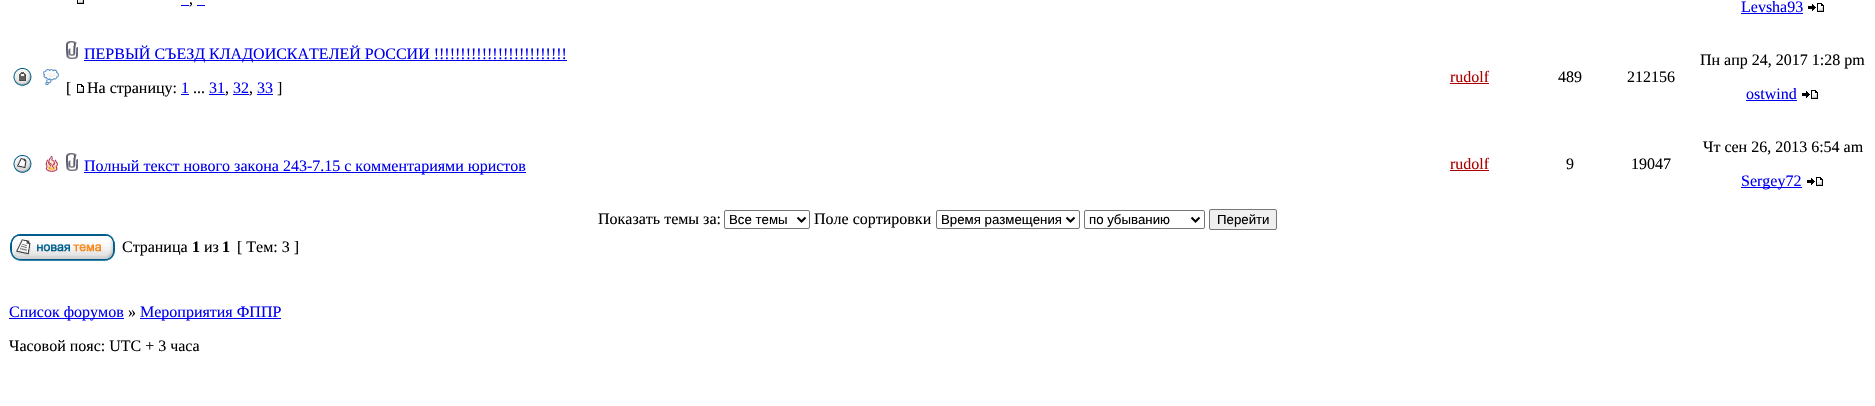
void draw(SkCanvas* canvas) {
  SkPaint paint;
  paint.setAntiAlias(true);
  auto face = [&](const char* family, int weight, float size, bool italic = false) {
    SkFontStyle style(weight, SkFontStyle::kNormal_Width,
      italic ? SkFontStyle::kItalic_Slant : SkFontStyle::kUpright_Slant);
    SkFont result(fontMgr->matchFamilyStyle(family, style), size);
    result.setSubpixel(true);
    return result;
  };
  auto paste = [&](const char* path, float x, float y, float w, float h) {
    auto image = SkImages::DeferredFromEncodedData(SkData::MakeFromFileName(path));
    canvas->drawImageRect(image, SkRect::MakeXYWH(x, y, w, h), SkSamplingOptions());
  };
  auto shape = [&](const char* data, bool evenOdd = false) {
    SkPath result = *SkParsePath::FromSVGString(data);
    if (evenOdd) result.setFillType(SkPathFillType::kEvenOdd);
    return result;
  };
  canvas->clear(0xffffffff);
  paste("img/1.png", 77, 0, 7, 4);
  {
    const struct { float x, y, w, h; SkColor color; } items[] = {
      {181, 5, 8, 1, 0xff0000ee},
      {197, 5, 8, 1, 0xff0000ee},
      {1741, 13, 62, 1, 0xff0000ee},
    };
    for (auto [x, y, w, h, color] : items) {
      paint.setColor(color);
      canvas->drawRect(SkRect::MakeXYWH(x, y, w, h), paint);
    }
  }
  paste("img/2.png", 1808, 3, 16, 9);
  paste("img/3.png", 13, 68, 19, 18);
  paste("img/4.png", 43, 69, 16, 16);
  paste("img/5.png", 66, 41, 12, 18);
  canvas->drawRect(SkRect::MakeXYWH(84, 60, 483, 1), paint);
  paste("img/6.png", 77, 84, 7, 9);
  {
    const struct { float x, y, w, h; SkColor color; } items[] = {
      {181, 94, 8, 1, 0xff0000ee},
      {209, 94, 16, 1, 0xff0000ee},
      {233, 94, 16, 1, 0xff0000ee},
      {257, 94, 16, 1, 0xff0000ee},
      {1450, 83, 39, 1, 0xffaa0000},
      {1746, 100, 51, 1, 0xff0000ee},
    };
    for (auto [x, y, w, h, color] : items) {
      paint.setColor(color);
      canvas->drawRect(SkRect::MakeXYWH(x, y, w, h), paint);
    }
  }
  paste("img/2.png", 1802, 90, 16, 9);
  paste("img/7.png", 13, 155, 19, 18);
  paste("img/8.png", 45, 156, 13, 16);
  paste("img/5.png", 66, 153, 12, 18);
  {
    const struct { float x, y, w, h; SkColor color; } items[] = {
      {84, 172, 442, 1, 0xff0000ee},
      {1450, 170, 39, 1, 0xffaa0000},
      {1741, 187, 61, 1, 0xff0000ee},
    };
    for (auto [x, y, w, h, color] : items) {
      paint.setColor(color);
      canvas->drawRect(SkRect::MakeXYWH(x, y, w, h), paint);
    }
  }
  paste("img/2.png", 1807, 177, 16, 9);
  paint.setStroke(true);
  paint.setStrokeWidth(1);
  paint.setColor(0xff767676);
  canvas->drawRoundRect(SkRect::MakeXYWH(724.5f, 210.5f, 85, 18), 1.5f, 1.5f, paint);
  paint.setStrokeWidth(2);
  paint.setColor(0xff000000);
  canvas->drawPath(shape("M797.5 217.5L801.5 221.5L805.5 217.5"), paint);
  paint.setStrokeWidth(1);
  paint.setColor(0xff767676);
  canvas->drawRoundRect(SkRect::MakeXYWH(936.5f, 210.5f, 143, 18), 1.5f, 1.5f, paint);
  paint.setStrokeWidth(2);
  paint.setColor(0xff000000);
  canvas->drawPath(shape("M1066.5 217.5L1070.5 221.5L1074.5 217.5"), paint);
  paint.setStrokeWidth(1);
  paint.setColor(0xff767676);
  canvas->drawRoundRect(SkRect::MakeXYWH(1084.5f, 210.5f, 120, 18), 1.5f, 1.5f, paint);
  paint.setStrokeWidth(2);
  paint.setColor(0xff000000);
  canvas->drawPath(shape("M1191.5 217.5L1195.5 221.5L1199.5 217.5"), paint);
  paint.setStroke(false);
  paint.setColor(0xffefefef);
  canvas->drawRoundRect(SkRect::MakeXYWH(1209.5f, 209.5f, 67, 20), 1.5f, 1.5f, paint);
  paint.setStroke(true);
  paint.setStrokeWidth(1);
  paint.setColor(0xff767676);
  canvas->drawRoundRect(SkRect::MakeXYWH(1209.5f, 209.5f, 67, 20), 1.5f, 1.5f, paint);
  paste("img/9.png", 10, 234, 105, 27);
  paint.setStroke(false);
  paint.setColor(0xff0000ee);
  canvas->drawRect(SkRect::MakeXYWH(9, 318, 115, 1), paint);
  canvas->drawRect(SkRect::MakeXYWH(140, 318, 141, 1), paint);
  auto f0 = face("Liberation Serif", 400, 16);
  paint.setColor(0xff000000);
  canvas->drawString(",", 189, 4, f0, paint);
  paint.setColor(0xff0000ee);
  canvas->drawString("Levsha93", 1741, 12, f0, paint);
  canvas->drawString("ПЕРВЫЙ СЪЕЗД КЛАДОИСКАТЕЛЕЙ РОССИИ !!!!!!!!!!!!!!!!!!!!!!!!!", 84, 59, f0, paint);
  paint.setColor(0xff000000);
  canvas->drawString("[", 66, 93, f0, paint);
  canvas->drawString("На страницу:", 87, 93, f0, paint);
  paint.setColor(0xff0000ee);
  canvas->drawString("1", 181, 93, f0, paint);
  paint.setColor(0xff000000);
  canvas->drawString("...", 193, 93, f0, paint);
  paint.setColor(0xff0000ee);
  canvas->drawString("31", 209, 93, f0, paint);
  paint.setColor(0xff000000);
  canvas->drawString(",", 225, 93, f0, paint);
  paint.setColor(0xff0000ee);
  canvas->drawString("32", 233, 93, f0, paint);
  paint.setColor(0xff000000);
  canvas->drawString(",", 249, 93, f0, paint);
  paint.setColor(0xff0000ee);
  canvas->drawString("33", 257, 93, f0, paint);
  paint.setColor(0xff000000);
  canvas->drawString("]", 277, 93, f0, paint);
  paint.setColor(0xffaa0000);
  canvas->drawString("rudolf", 1450, 82, f0, paint);
  paint.setColor(0xff000000);
  {
    const struct { const char* s; float x, y; } items[] = {
      {"489", 1558, 82},
      {"212156", 1627, 82},
      {"Пн апр 24, 2017 1:28 pm", 1700, 65},
    };
    for (auto [s, x, y] : items) {
      canvas->drawString(s, x, y, f0, paint);
    }
  }
  paint.setColor(0xff0000ee);
  canvas->drawString("ostwind", 1746, 99, f0, paint);
  canvas->drawString("Полный текст нового закона 243-7.15 с комментариями юристов", 84, 171, f0, paint);
  paint.setColor(0xffaa0000);
  canvas->drawString("rudolf", 1450, 169, f0, paint);
  paint.setColor(0xff000000);
  {
    const struct { const char* s; float x, y; } items[] = {
      {"9", 1566, 169},
      {"19047", 1631, 169},
      {"Чт сен 26, 2013 6:54 am", 1703, 152},
    };
    for (auto [s, x, y] : items) {
      canvas->drawString(s, x, y, f0, paint);
    }
  }
  paint.setColor(0xff0000ee);
  canvas->drawString("Sergey72", 1741, 186, f0, paint);
  paint.setColor(0xff000000);
  canvas->drawString("Показать темы за:", 598, 224, f0, paint);
  auto f1 = face("Liberation Sans", 400, 13.25f);
  canvas->drawString("Все темы", 729, 224, f1, paint);
  canvas->drawString("Поле сортировки", 814, 224, f0, paint);
  {
    const struct { const char* s; float x, y; } items[] = {
      {"Время размещения", 941, 224},
      {"по убыванию", 1089, 224},
      {"Перейти", 1217, 224},
    };
    for (auto [s, x, y] : items) {
      canvas->drawString(s, x, y, f1, paint);
    }
  }
  canvas->drawString("Страница", 122, 252, f0, paint);
  auto f2 = face("Liberation Serif", 700, 16);
  canvas->drawString("1", 192, 252, f2, paint);
  canvas->drawString("из", 204, 252, f0, paint);
  canvas->drawString("1", 222, 252, f2, paint);
  canvas->drawString("[ Тем: 3 ]", 237, 252, f0, paint);
  paint.setColor(0xff0000ee);
  canvas->drawString("Список форумов", 9, 317, f0, paint);
  paint.setColor(0xff000000);
  canvas->drawString("»", 128, 317, f0, paint);
  paint.setColor(0xff0000ee);
  canvas->drawString("Мероприятия ФППР", 140, 317, f0, paint);
  paint.setColor(0xff000000);
  canvas->drawString("Часовой пояс: UTC + 3 часа", 9, 351, f0, paint);
}
